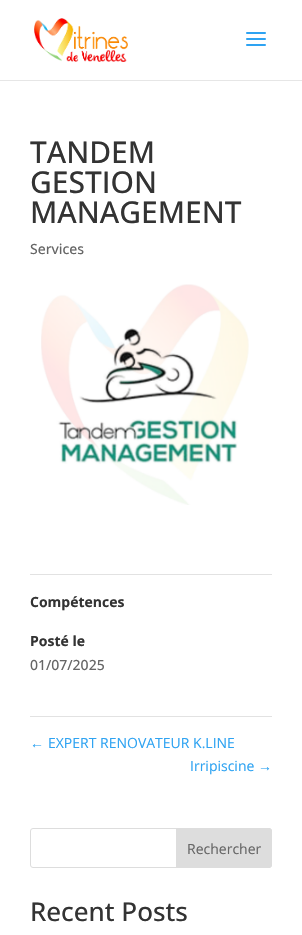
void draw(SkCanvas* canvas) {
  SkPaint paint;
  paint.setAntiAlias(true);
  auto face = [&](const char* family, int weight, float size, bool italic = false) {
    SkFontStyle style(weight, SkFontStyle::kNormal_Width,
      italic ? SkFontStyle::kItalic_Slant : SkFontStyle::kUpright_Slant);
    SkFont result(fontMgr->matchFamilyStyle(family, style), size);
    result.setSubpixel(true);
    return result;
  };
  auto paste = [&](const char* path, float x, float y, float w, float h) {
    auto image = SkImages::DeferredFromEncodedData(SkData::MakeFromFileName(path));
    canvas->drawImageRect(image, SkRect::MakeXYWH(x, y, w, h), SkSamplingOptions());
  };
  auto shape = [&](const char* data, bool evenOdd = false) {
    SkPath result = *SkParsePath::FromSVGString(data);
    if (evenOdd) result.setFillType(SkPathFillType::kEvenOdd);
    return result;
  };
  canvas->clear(0xffffffff);
  paint.setColor(0xffe6e6e6);
  canvas->drawRect(SkRect::MakeXYWH(0, 80, 302, 1), paint);
  paste("img/1.png", 34, 18, 94, 44);
  paste("img/2.png", 246, 32, 20, 14);
  paste("img/3.png", 41, 284, 208, 221);
  paint.setColor(0xffe2e2e2);
  canvas->drawRect(SkRect::MakeXYWH(30, 574, 242, 1), paint);
  canvas->drawRect(SkRect::MakeXYWH(30, 716, 242, 1), paint);
  paint.setStroke(true);
  paint.setStrokeWidth(1);
  paint.setColor(0xffdddddd);
  canvas->drawRoundRect(SkRect::MakeXYWH(30.5f, 828.5f, 241, 39), 2.5f, 2.5f, paint);
  paint.setStroke(false);
  canvas->drawPath(shape("M176.5 828.5H269C270.5 828.5 271.5 829.5 271.5 831V865C271.5 866.5 270.5 867.5 269 867.5H176.5Z"), paint);
  paint.setStroke(true);
  canvas->drawPath(shape("M176.5 828.5H269C270.5 828.5 271.5 829.5 271.5 831V865C271.5 866.5 270.5 867.5 269 867.5H176.5Z"), paint);
  auto f0 = face("Open Sans", 500, 30);
  paint.setStroke(false);
  paint.setColor(0xff333333);
  {
    const struct { const char* s; float x, y; } items[] = {
      {"TANDEM", 30, 163},
      {"GESTION", 30, 193},
      {"MANAGEMENT", 30, 223},
    };
    for (auto [s, x, y] : items) {
      canvas->drawString(s, x, y, f0, paint);
    }
  }
  auto f1 = face("Open Sans", 500, 14);
  paint.setColor(0xff666666);
  canvas->drawString("Services", 30, 254, f1, paint);
  auto f2 = face("Open Sans", 700, 14);
  paint.setColor(0xff333333);
  canvas->drawString("Compétences", 30, 607, f2, paint);
  canvas->drawString("Posté le", 30, 646, f2, paint);
  paint.setColor(0xff666666);
  canvas->drawString("01/07/2025", 30, 670, f1, paint);
  auto f3 = face("Liberation Sans", 400, 14);
  paint.setColor(0xff2ea3f2);
  canvas->drawString("←", 30, 748, f3, paint);
  auto f4 = face("Open Sans", 400, 14);
  canvas->drawString("EXPERT RENOVATEUR K.LINE", 48, 748, f4, paint);
  canvas->drawString("Irripiscine", 190, 771, f4, paint);
  canvas->drawString("→", 258, 771, f3, paint);
  paint.setColor(0xff666666);
  canvas->drawString("Rechercher", 187, 854, f4, paint);
  auto f5 = face("Open Sans", 500, 26);
  paint.setColor(0xff333333);
  canvas->drawString("Recent Posts", 30, 921, f5, paint);
}
